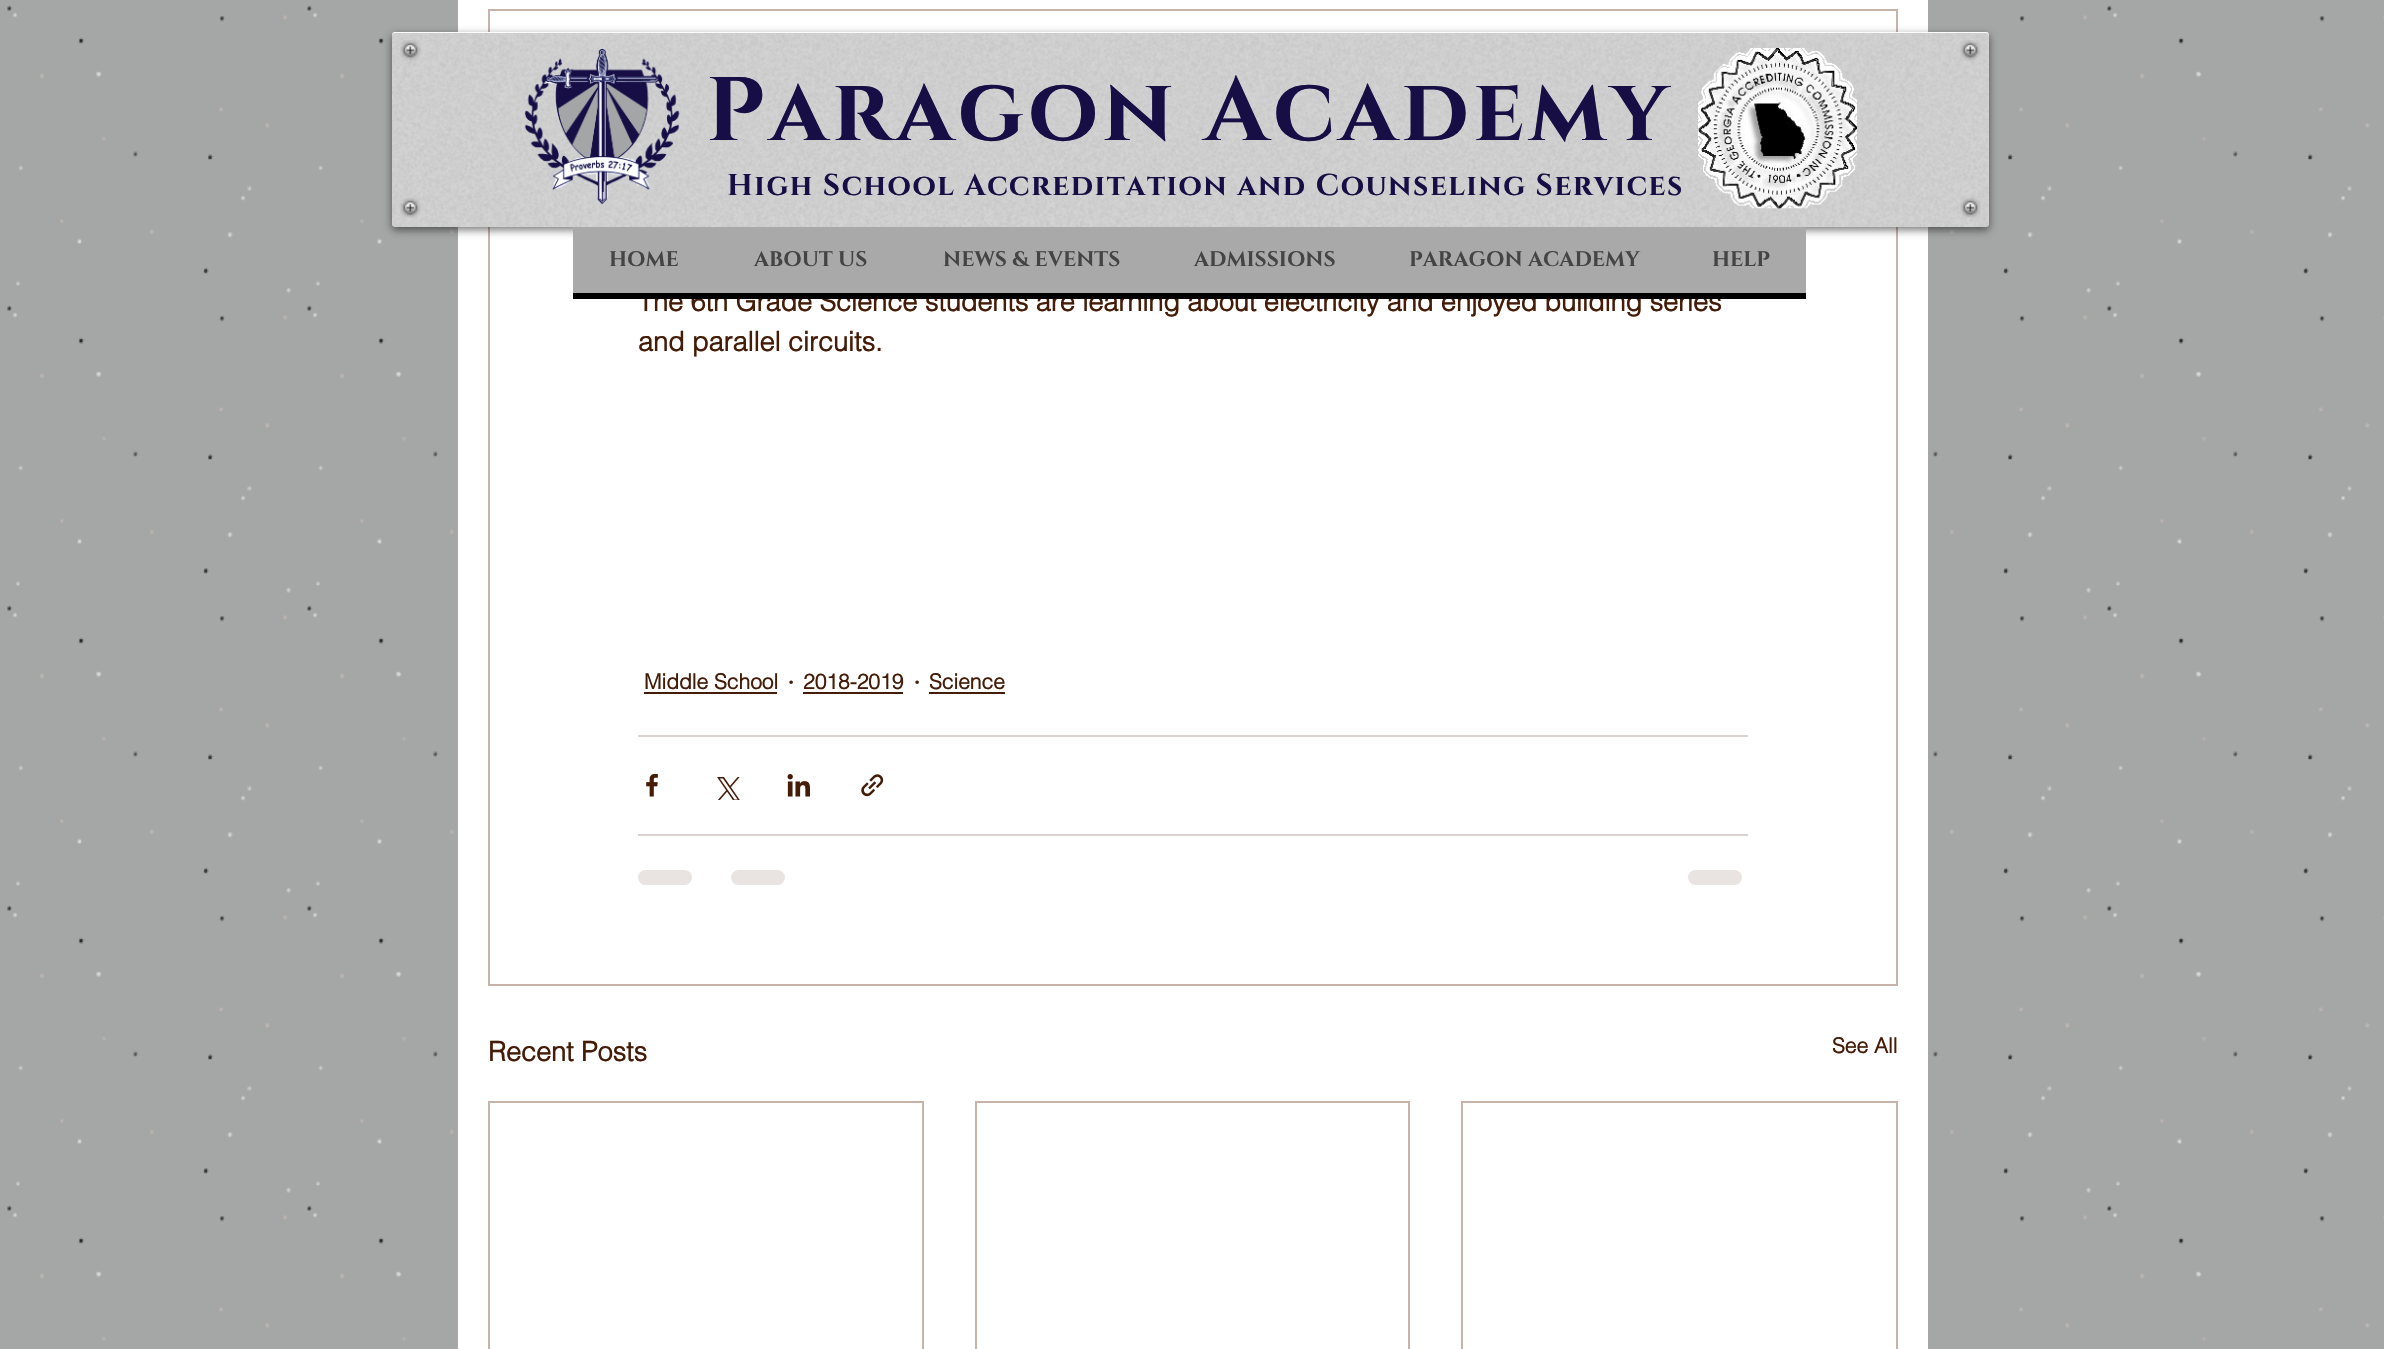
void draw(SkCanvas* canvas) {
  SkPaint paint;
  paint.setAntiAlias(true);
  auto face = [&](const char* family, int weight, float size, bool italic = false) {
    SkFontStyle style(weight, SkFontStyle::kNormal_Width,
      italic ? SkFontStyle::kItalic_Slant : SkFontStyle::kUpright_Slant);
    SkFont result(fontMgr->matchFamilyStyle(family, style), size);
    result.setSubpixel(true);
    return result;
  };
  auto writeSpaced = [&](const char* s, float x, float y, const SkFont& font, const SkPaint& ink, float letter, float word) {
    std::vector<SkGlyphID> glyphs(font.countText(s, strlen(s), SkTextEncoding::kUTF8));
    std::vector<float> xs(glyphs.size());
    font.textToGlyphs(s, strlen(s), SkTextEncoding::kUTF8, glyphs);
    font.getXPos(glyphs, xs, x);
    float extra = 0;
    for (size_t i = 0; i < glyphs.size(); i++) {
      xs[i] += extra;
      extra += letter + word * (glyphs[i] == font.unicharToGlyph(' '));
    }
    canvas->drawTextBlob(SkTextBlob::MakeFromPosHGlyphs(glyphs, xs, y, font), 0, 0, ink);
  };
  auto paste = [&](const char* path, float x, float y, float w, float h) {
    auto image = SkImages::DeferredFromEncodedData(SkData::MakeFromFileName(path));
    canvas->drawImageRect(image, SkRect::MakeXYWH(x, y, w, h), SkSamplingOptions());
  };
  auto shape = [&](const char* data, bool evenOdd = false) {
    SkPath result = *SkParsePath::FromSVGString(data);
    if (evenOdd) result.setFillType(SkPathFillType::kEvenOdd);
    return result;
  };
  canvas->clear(0xffa5a6a6);
  paste("img/1.png", 7, 5, 2377, 1336);
  paint.setColor(0xffffffff);
  canvas->drawRect(SkRect::MakeXYWH(458, 0, 1470, 1349), paint);
  paint.setStroke(true);
  paint.setStrokeWidth(2);
  paint.setColor(0xffc7b3aa);
  canvas->drawRect(SkRect::MakeXYWH(489, 10, 1408, 975), paint);
  paint.setStroke(false);
  paint.setColor(0x87000000);
  paint.setMaskFilter(SkMaskFilter::MakeBlur(kNormal_SkBlurStyle, 4));
  canvas->drawRoundRect(SkRect::MakeXYWH(392, 35, 1597, 195), 3, 3, paint);
  paint.setMaskFilter(nullptr);
  paint.setColor(0xffd4d4d4);
  canvas->drawRoundRect(SkRect::MakeXYWH(392, 32, 1597, 195), 3, 3, paint);
  paste("img/2.png", 392, 32, 1597, 195);
  paint.setColor(0xebffffff);
  canvas->drawPath(shape("M394 33H1986C1988 33 1989 34 1989 36V35C1989 33 1988 32 1986 32H395C393 32 392 33 392 35V36C392 34 393 33 394 33Z"), paint);
  paste("img/3.png", 400, 40, 21, 21);
  paste("img/4.png", 1960, 40, 21, 21);
  paste("img/5.png", 524, 48, 156, 157);
  paste("img/6.png", 1698, 48, 159, 161);
  paste("img/7.png", 400, 197, 21, 21);
  paste("img/8.png", 1960, 197, 21, 21);
  {
    const struct { float x, y, w, h; SkColor color; } items[] = {
      {644, 692, 133, 2, 0xff441c08},
      {803, 692, 100, 2, 0xff441c08},
      {929, 692, 76, 2, 0xff441c08},
      {638, 735, 1110, 2, 0xffdad2ce},
    };
    for (auto [x, y, w, h, color] : items) {
      paint.setColor(color);
      canvas->drawRect(SkRect::MakeXYWH(x, y, w, h), paint);
    }
  }
  paste("img/9.png", 646, 774, 12, 23);
  paste("img/10.png", 717, 777, 23, 23);
  paste("img/11.png", 787, 774, 23, 23);
  paste("img/12.png", 861, 774, 23, 23);
  canvas->drawRect(SkRect::MakeXYWH(638, 834, 1110, 2), paint);
  paint.setColor(0xffe9e4e1);
  canvas->drawRoundRect(SkRect::MakeXYWH(638, 870, 54, 15), 7.5f, 7.5f, paint);
  canvas->drawRoundRect(SkRect::MakeXYWH(731, 870, 54, 15), 7.5f, 7.5f, paint);
  canvas->drawRoundRect(SkRect::MakeXYWH(1688, 870, 54, 15), 7.5f, 7.5f, paint);
  paint.setStroke(true);
  paint.setColor(0xffc7b3aa);
  canvas->drawRect(SkRect::MakeXYWH(489, 1102, 434, 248), paint);
  canvas->drawRect(SkRect::MakeXYWH(976, 1102, 433, 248), paint);
  canvas->drawRect(SkRect::MakeXYWH(1462, 1102, 435, 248), paint);
  auto f0 = face("Cinzel", 700, 90);
  paint.setStroke(false);
  paint.setColor(0xff160e44);
  writeSpaced("Paragon Academy", 706, 140, f0, paint, 4.5f, 0);
  auto f1 = face("Cinzel", 700, 30);
  writeSpaced("High School Accreditation and Counseling Services", 727, 195, f1, paint, 1.5f, 0);
  auto f2 = face("helvetica", 700, 27);
  paint.setColor(0xff441c08);
  canvas->drawString("The 6th Grade Science students are learning about electricity and enjoyed building series", 638, 311, f2, paint);
  paint.setColor(0xffa9a9a9);
  canvas->drawRect(SkRect::MakeXYWH(573, 227, 1233, 66), paint);
  auto f3 = face("Cinzel", 700, 21);
  paint.setColor(0xff444444);
  {
    const struct { const char* s; float x, y; } items[] = {
      {"HELP", 1712, 266},
      {"PARAGON ACADEMY", 1409, 266},
      {"ADMISSIONS", 1194, 266},
      {"NEWS & EVENTS", 943, 266},
      {"ABOUT US", 754, 266},
      {"HOME", 609, 266},
    };
    for (auto [s, x, y] : items) {
      canvas->drawString(s, x, y, f3, paint);
    }
  }
  paint.setColor(0xff000000);
  canvas->drawRect(SkRect::MakeXYWH(573, 293, 1233, 6), paint);
  paint.setColor(0xff441c08);
  canvas->drawString("and parallel circuits.", 638, 351, f2, paint);
  auto f4 = face("helvetica", 700, 21);
  canvas->drawString("Middle School", 644, 689, f4, paint);
  canvas->drawString("·", 787, 692, f2, paint);
  canvas->drawString("2018-2019", 803, 689, f4, paint);
  canvas->drawString("·", 913, 692, f2, paint);
  canvas->drawString("Science", 929, 689, f4, paint);
  canvas->drawString("Recent Posts", 488, 1061, f2, paint);
  canvas->drawString("See All", 1832, 1053, f4, paint);
}
